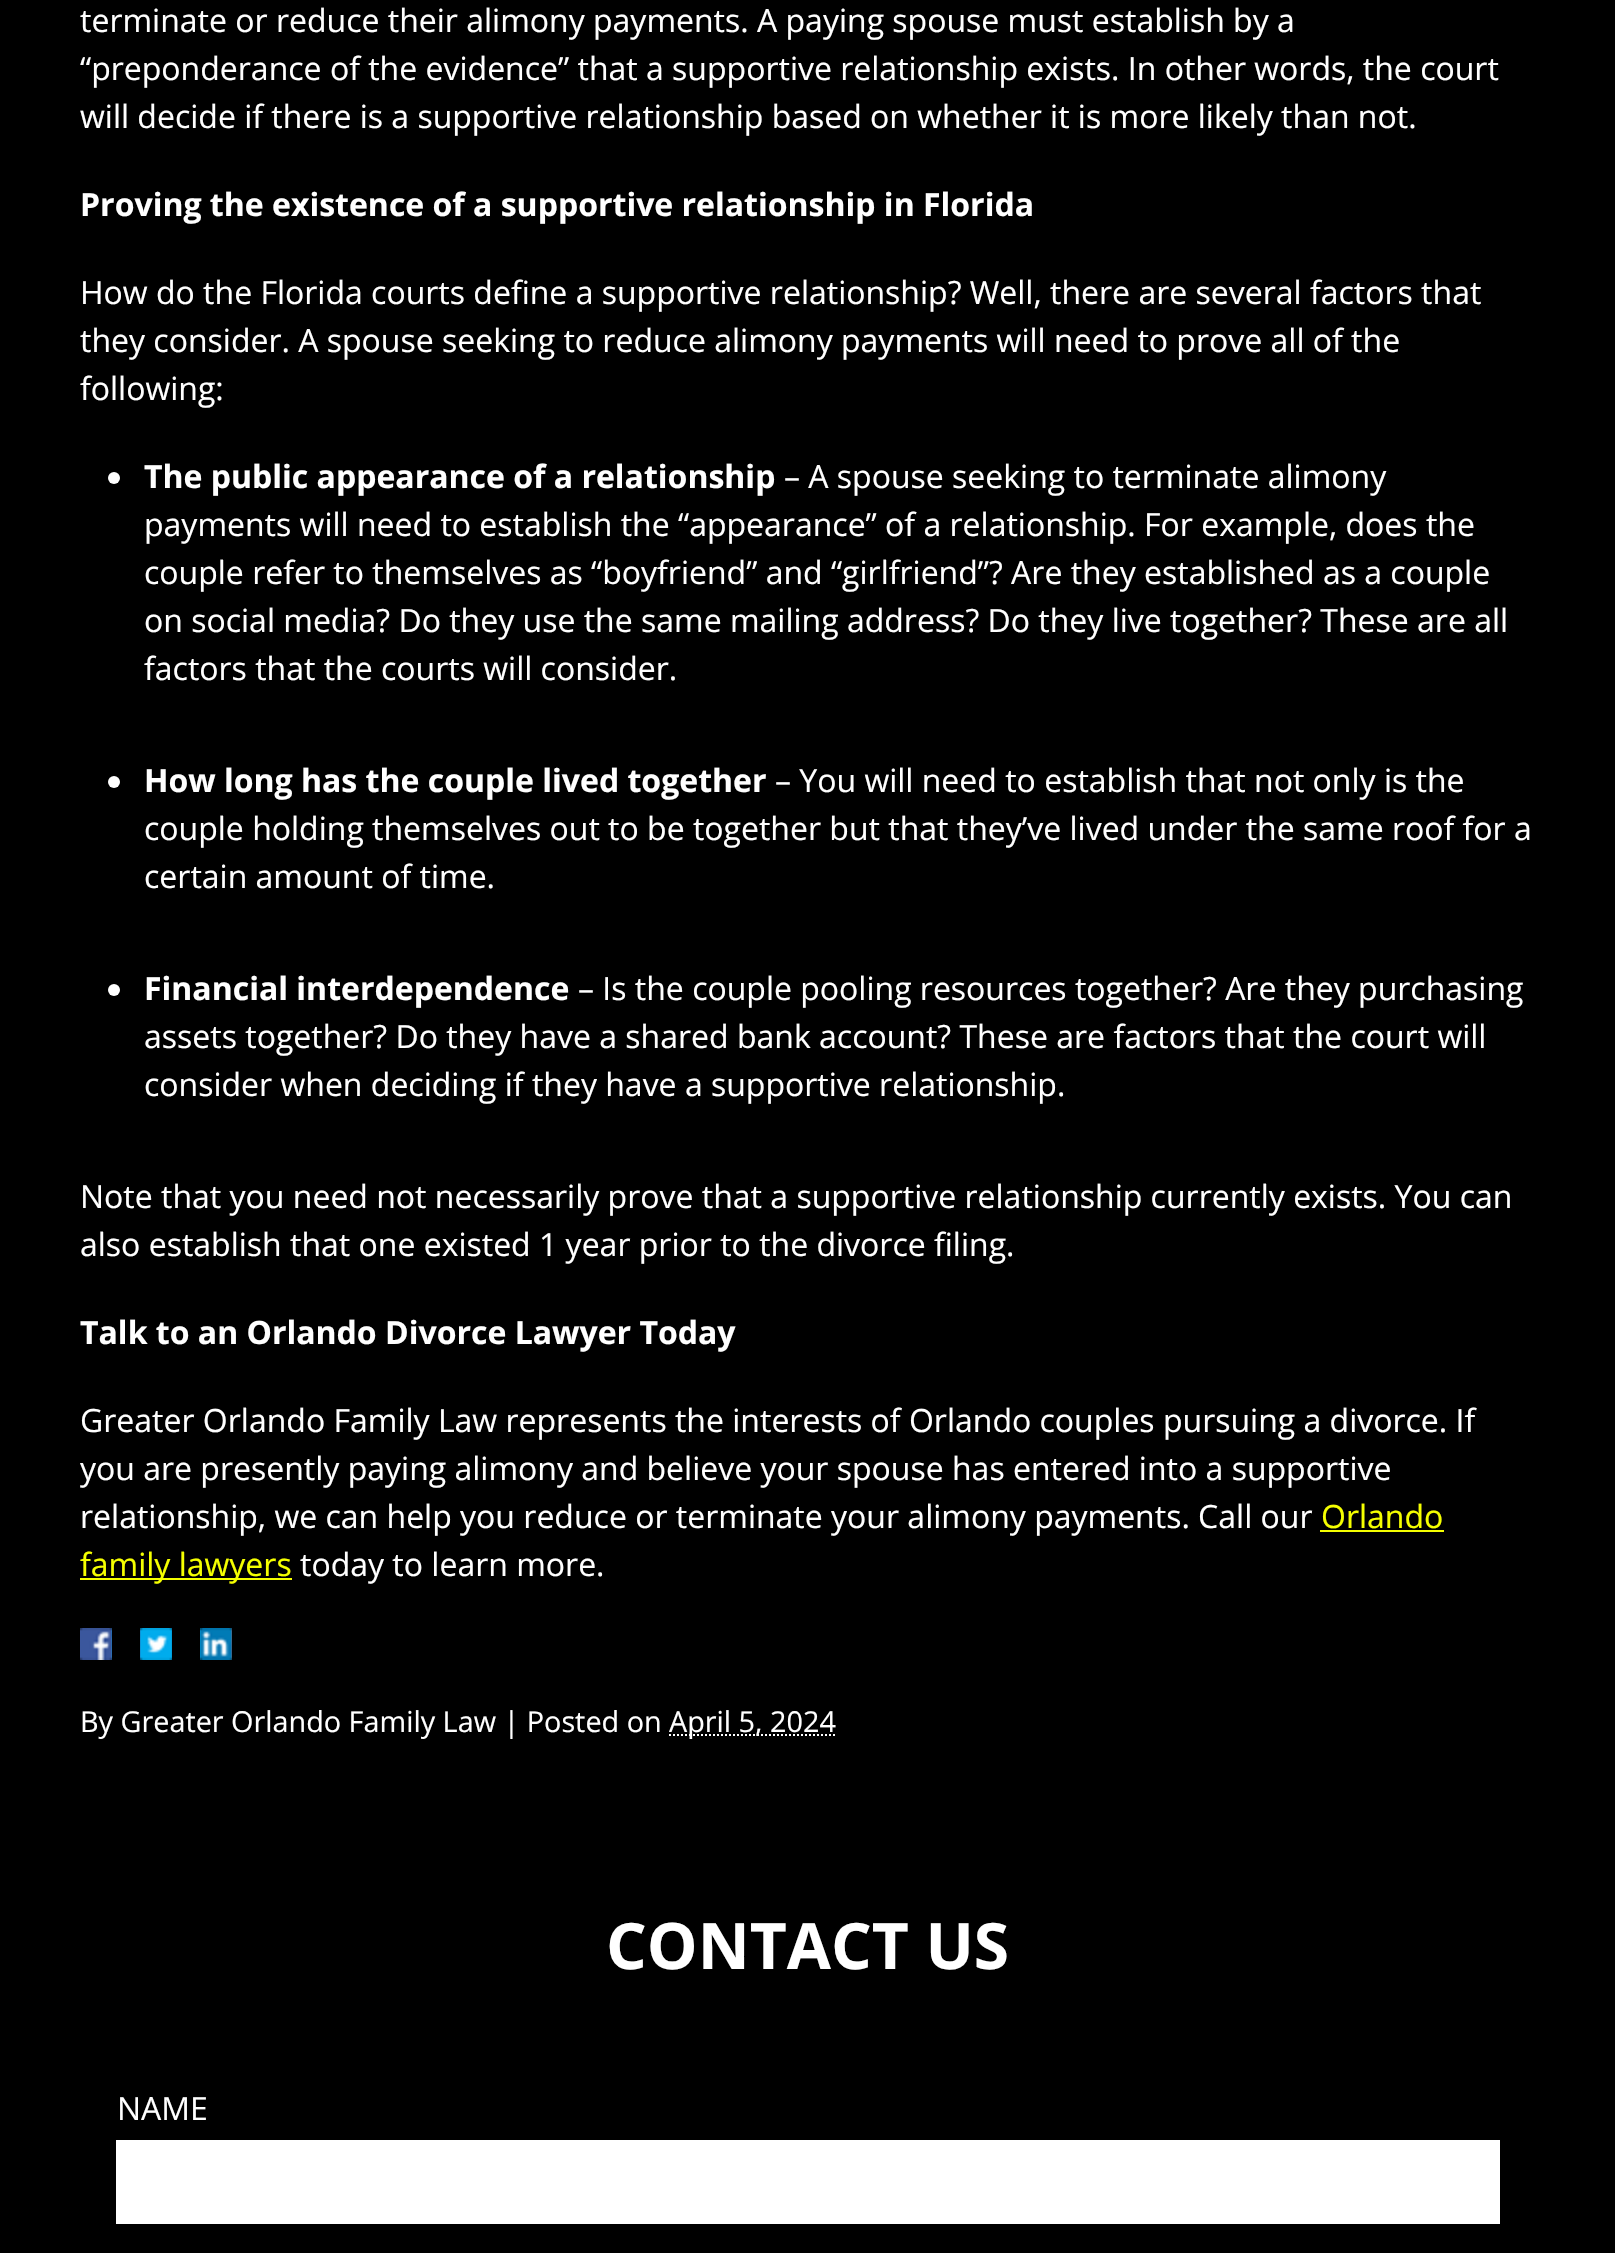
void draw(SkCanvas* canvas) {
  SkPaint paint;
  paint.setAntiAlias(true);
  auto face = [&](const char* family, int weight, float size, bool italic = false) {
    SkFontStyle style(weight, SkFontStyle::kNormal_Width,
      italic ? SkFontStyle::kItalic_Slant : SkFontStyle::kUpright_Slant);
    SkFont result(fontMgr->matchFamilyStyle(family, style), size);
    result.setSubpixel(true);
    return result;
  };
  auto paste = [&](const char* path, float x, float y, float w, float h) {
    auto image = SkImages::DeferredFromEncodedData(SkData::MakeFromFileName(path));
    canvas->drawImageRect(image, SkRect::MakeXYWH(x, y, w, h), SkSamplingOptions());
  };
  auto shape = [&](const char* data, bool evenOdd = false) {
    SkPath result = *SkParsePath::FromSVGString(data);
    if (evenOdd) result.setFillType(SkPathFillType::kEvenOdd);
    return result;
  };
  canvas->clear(0xff000000);
  paint.setColor(0xffffffff);
  canvas->drawCircle(114, 478, 6, paint);
  canvas->drawCircle(114, 782, 6, paint);
  canvas->drawCircle(114, 990, 6, paint);
  paint.setColor(0xfff5ff00);
  canvas->drawRect(SkRect::MakeXYWH(1320, 1530, 124, 2), paint);
  canvas->drawRect(SkRect::MakeXYWH(80, 1578, 212, 2), paint);
  paste("img/1.png", 80, 1628, 32, 32);
  paste("img/2.png", 140, 1628, 32, 32);
  paste("img/3.png", 200, 1628, 32, 32);
  paint.setStroke(true);
  paint.setStrokeWidth(2);
  paint.setColor(0xffffffff);
  paint.setPathEffect(SkDashPathEffect::Make({{2, 2}}, 0));
  canvas->drawPath(shape("M669 1735H835.5"), paint);
  paint.setPathEffect(nullptr);
  paint.setStroke(false);
  canvas->drawRect(SkRect::MakeXYWH(116, 2140, 1384, 84), paint);
  auto f0 = face("Open Sans", 400, 32);
  {
    const struct { const char* s; float x, y; } items[] = {
      {"terminate or reduce their alimony payments. A paying spouse must establish by a", 80, 32},
      {"“preponderance of the evidence” that a supportive relationship exists. In other words, the court", 80, 80},
      {"will decide if there is a supportive relationship based on whether it is more likely than not.", 80, 128},
    };
    for (auto [s, x, y] : items) {
      canvas->drawString(s, x, y, f0, paint);
    }
  }
  auto f1 = face("Open Sans", 700, 32);
  canvas->drawString("Proving the existence of a supportive relationship in Florida", 80, 216, f1, paint);
  {
    const struct { const char* s; float x, y; } items[] = {
      {"How do the Florida courts define a supportive relationship? Well, there are several factors that", 80, 304},
      {"they consider. A spouse seeking to reduce alimony payments will need to prove all of the", 80, 352},
      {"following:", 80, 400},
    };
    for (auto [s, x, y] : items) {
      canvas->drawString(s, x, y, f0, paint);
    }
  }
  canvas->drawString("The public appearance of a relationship", 144, 488, f1, paint);
  {
    const struct { const char* s; float x, y; } items[] = {
      {"– A spouse seeking to terminate alimony", 784, 488},
      {"payments will need to establish the “appearance” of a relationship. For example, does the", 144, 536},
      {"couple refer to themselves as “boyfriend” and “girlfriend”? Are they established as a couple", 144, 584},
      {"on social media? Do they use the same mailing address? Do they live together? These are all", 144, 632},
      {"factors that the courts will consider.", 144, 680},
    };
    for (auto [s, x, y] : items) {
      canvas->drawString(s, x, y, f0, paint);
    }
  }
  canvas->drawString("How long has the couple lived together", 144, 792, f1, paint);
  {
    const struct { const char* s; float x, y; } items[] = {
      {"– You will need to establish that not only is the", 775, 792},
      {"couple holding themselves out to be together but that they’ve lived under the same roof for a", 144, 840},
      {"certain amount of time.", 144, 888},
    };
    for (auto [s, x, y] : items) {
      canvas->drawString(s, x, y, f0, paint);
    }
  }
  canvas->drawString("Financial interdependence", 144, 1000, f1, paint);
  {
    const struct { const char* s; float x, y; } items[] = {
      {"– Is the couple pooling resources together? Are they purchasing", 578, 1000},
      {"assets together? Do they have a shared bank account? These are factors that the court will", 144, 1048},
      {"consider when deciding if they have a supportive relationship.", 144, 1096},
      {"Note that you need not necessarily prove that a supportive relationship currently exists. You can", 80, 1208},
      {"also establish that one existed 1 year prior to the divorce filing.", 80, 1256},
    };
    for (auto [s, x, y] : items) {
      canvas->drawString(s, x, y, f0, paint);
    }
  }
  canvas->drawString("Talk to an Orlando Divorce Lawyer Today", 80, 1344, f1, paint);
  {
    const struct { const char* s; float x, y; } items[] = {
      {"Greater Orlando Family Law represents the interests of Orlando couples pursuing a divorce. If", 80, 1432},
      {"you are presently paying alimony and believe your spouse has entered into a supportive", 80, 1480},
      {"relationship, we can help you reduce or terminate your alimony payments. Call our", 80, 1528},
    };
    for (auto [s, x, y] : items) {
      canvas->drawString(s, x, y, f0, paint);
    }
  }
  paint.setColor(0xfff5ff00);
  canvas->drawString("Orlando", 1321, 1528, f0, paint);
  canvas->drawString("family lawyers", 80, 1576, f0, paint);
  paint.setColor(0xffffffff);
  canvas->drawString("today to learn more.", 300, 1576, f0, paint);
  auto f2 = face("Open Sans", 400, 28.8f);
  canvas->drawString("By Greater Orlando Family Law | Posted on", 80, 1732, f2, paint);
  canvas->drawString("April 5, 2024", 669, 1732, f2, paint);
  auto f3 = face("Open Sans", 700, 64);
  canvas->drawString("CONTACT US", 606, 1969, f3, paint);
  canvas->drawString("NAME", 117, 2120, f0, paint);
}
